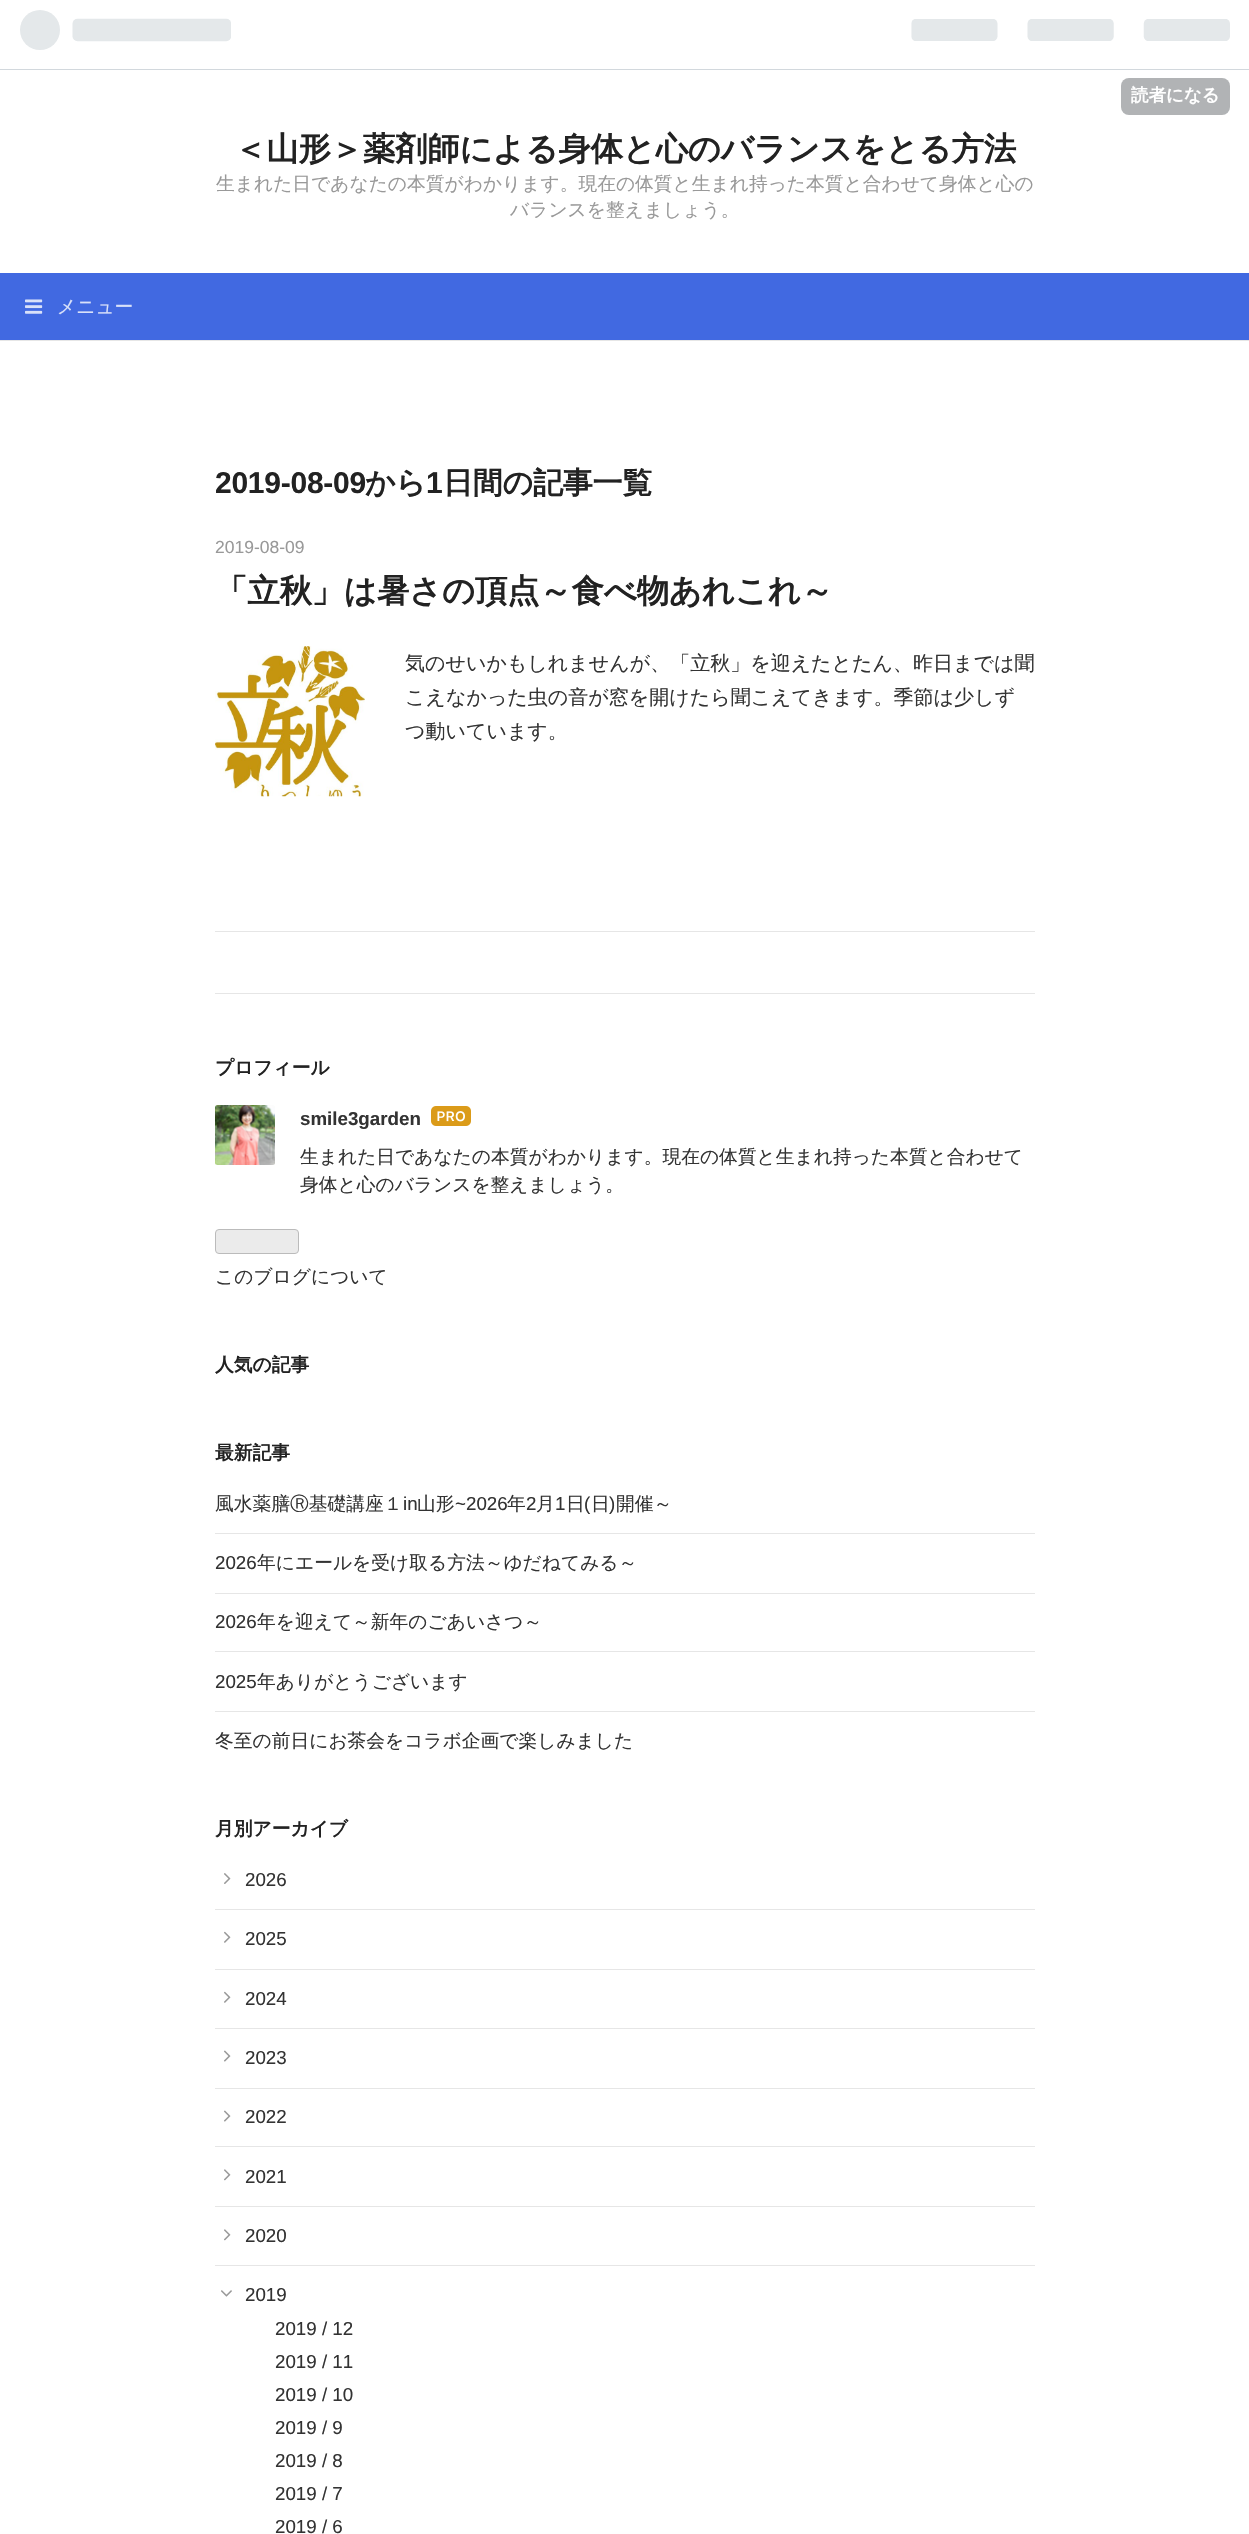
void draw(SkCanvas* canvas) {
  SkPaint paint;
  paint.setAntiAlias(true);
  auto face = [&](const char* family, int weight, float size, bool italic = false) {
    SkFontStyle style(weight, SkFontStyle::kNormal_Width,
      italic ? SkFontStyle::kItalic_Slant : SkFontStyle::kUpright_Slant);
    SkFont result(fontMgr->matchFamilyStyle(family, style), size);
    result.setSubpixel(true);
    return result;
  };
  auto writeSpaced = [&](const char* s, float x, float y, const SkFont& font, const SkPaint& ink, float letter, float word) {
    std::vector<SkGlyphID> glyphs(font.countText(s, strlen(s), SkTextEncoding::kUTF8));
    std::vector<float> xs(glyphs.size());
    font.textToGlyphs(s, strlen(s), SkTextEncoding::kUTF8, glyphs);
    font.getXPos(glyphs, xs, x);
    float extra = 0;
    for (size_t i = 0; i < glyphs.size(); i++) {
      xs[i] += extra;
      extra += letter + word * (glyphs[i] == font.unicharToGlyph(' '));
    }
    canvas->drawTextBlob(SkTextBlob::MakeFromPosHGlyphs(glyphs, xs, y, font), 0, 0, ink);
  };
  auto paste = [&](const char* path, float x, float y, float w, float h) {
    auto image = SkImages::DeferredFromEncodedData(SkData::MakeFromFileName(path));
    canvas->drawImageRect(image, SkRect::MakeXYWH(x, y, w, h), SkSamplingOptions());
  };
  canvas->clear(0xffffffff);
  paint.setColor(0xffd2d8dd);
  canvas->drawRect(SkRect::MakeXYWH(0, 69, 1249, 1), paint);
  paste("img/1.png", 20, 10, 211, 40);
  paste("img/2.png", 911, 19, 319, 22);
  paint.setColor(0xffb1b3b5);
  canvas->drawRoundRect(SkRect::MakeXYWH(1121, 78, 109, 37), 8, 8, paint);
  paint.setColor(0xff4169e1);
  canvas->drawRect(SkRect::MakeXYWH(0, 273, 1249, 67), paint);
  paste("img/3.png", 25, 299, 18, 15);
  {
    const struct { float x, y, w, h; SkColor color; } items[] = {
      {0, 340, 1249, 1, 0xffe6e6e6},
      {215, 993, 820, 1, 0xffe6e6e6},
      {215, 931, 820, 1, 0xffe6e6e6},
    };
    for (auto [x, y, w, h, color] : items) {
      paint.setColor(color);
      canvas->drawRect(SkRect::MakeXYWH(x, y, w, h), paint);
    }
  }
  paste("img/4.png", 215, 646, 150, 151);
  paste("img/5.png", 215, 1105, 60, 60);
  paste("img/6.png", 431, 1106, 40, 20);
  paint.setColor(0xffebebeb);
  canvas->drawRoundRect(SkRect::MakeXYWH(215.5f, 1229.5f, 83, 24), 3.5f, 3.5f, paint);
  paint.setStroke(true);
  paint.setStrokeWidth(1);
  paint.setColor(0xffbbbbbb);
  canvas->drawRoundRect(SkRect::MakeXYWH(215.5f, 1229.5f, 83, 24), 3.5f, 3.5f, paint);
  paint.setStroke(false);
  {
    const struct { float x, y, w, h; SkColor color; } items[] = {
      {215, 1533, 820, 1, 0xffe6e6e6},
      {215, 1593, 820, 1, 0xffe6e6e6},
      {215, 1651, 820, 1, 0xffe6e6e6},
      {215, 1711, 820, 1, 0xffe6e6e6},
    };
    for (auto [x, y, w, h, color] : items) {
      paint.setColor(color);
      canvas->drawRect(SkRect::MakeXYWH(x, y, w, h), paint);
    }
  }
  paste("img/7.png", 224, 1873, 7, 11);
  canvas->drawRect(SkRect::MakeXYWH(215, 1909, 820, 1), paint);
  paste("img/8.png", 224, 1931, 7, 12);
  canvas->drawRect(SkRect::MakeXYWH(215, 1969, 820, 1), paint);
  paste("img/8.png", 224, 1991, 7, 12);
  canvas->drawRect(SkRect::MakeXYWH(215, 2028, 820, 1), paint);
  paste("img/9.png", 224, 2050, 7, 12);
  canvas->drawRect(SkRect::MakeXYWH(215, 2088, 820, 1), paint);
  paste("img/9.png", 224, 2110, 7, 12);
  canvas->drawRect(SkRect::MakeXYWH(215, 2146, 820, 1), paint);
  paste("img/10.png", 224, 2169, 7, 12);
  canvas->drawRect(SkRect::MakeXYWH(215, 2206, 820, 1), paint);
  paste("img/10.png", 224, 2229, 7, 12);
  canvas->drawRect(SkRect::MakeXYWH(215, 2265, 820, 1), paint);
  paste("img/11.png", 221, 2290, 11, 7);
  auto f0 = face("WenQuanYi Zen Hei", 700, 17.5f);
  paint.setColor(0xffffffff);
  canvas->drawString("読者になる", 1131, 101, f0, paint);
  auto f1 = face("WenQuanYi Zen Hei", 700, 32.5f);
  paint.setColor(0xff222222);
  writeSpaced("＜山形＞薬剤師による身体と心のバランスをとる方法", 234, 160, f1, paint, -0.3f, 0);
  auto f2 = face("WenQuanYi Zen Hei", 500, 18.75f);
  paint.setColor(0xff999999);
  canvas->drawString("生まれた日であなたの本質がわかります。現在の体質と生まれ持った本質と合わせて身体と心の", 216, 190, f2, paint);
  canvas->drawString("バランスを整えましょう。", 510, 216, f2, paint);
  paint.setColor(0xffd9e1f9);
  canvas->drawString("メニュー", 57, 313, f2, paint);
  auto f3 = face("Liberation Sans", 700, 30);
  paint.setColor(0xff222222);
  writeSpaced("2019-08-09", 215, 493, f3, paint, -0.25f, 0);
  auto f4 = face("WenQuanYi Zen Hei", 700, 30);
  writeSpaced("から", 365, 493, f4, paint, -0.25f, 0);
  writeSpaced("1", 426, 493, f3, paint, -0.25f, 0);
  writeSpaced("日間の記事一覧", 443, 493, f4, paint, -0.25f, 0);
  auto f5 = face("Liberation Sans", 400, 17.5f);
  paint.setColor(0xff999999);
  canvas->drawString("2019-08-09", 215, 553, f5, paint);
  paint.setColor(0xff222222);
  writeSpaced("「立秋」は暑さの頂点～食べ物あれこれ～", 215, 602, f1, paint, -0.3f, 0);
  auto f6 = face("WenQuanYi Zen Hei", 500, 20);
  paint.setColor(0xff333333);
  {
    const struct { const char* s; float x, y; } items[] = {
      {"気のせいかもしれませんが、「立秋」を迎えたとたん、昨日までは聞", 405, 670},
      {"こえなかった虫の音が窓を開けたら聞こえてきます。季節は少しず", 405, 704},
      {"つ動いています。", 405, 738},
    };
    for (auto [s, x, y] : items) {
      canvas->drawString(s, x, y, f6, paint);
    }
  }
  auto f7 = face("WenQuanYi Zen Hei", 700, 18.75f);
  paint.setColor(0xff222222);
  canvas->drawString("プロフィール", 215, 1074, f7, paint);
  auto f8 = face("Liberation Sans", 700, 18.75f);
  paint.setColor(0xff333333);
  canvas->drawString("smile3garden", 300, 1125, f8, paint);
  {
    const struct { const char* s; float x, y; } items[] = {
      {"生まれた日であなたの本質がわかります。現在の体質と生まれ持った本質と合わせて", 300, 1163},
      {"身体と心のバランスを整えましょう。", 300, 1191},
      {"このブログについて", 215, 1283},
    };
    for (auto [s, x, y] : items) {
      canvas->drawString(s, x, y, f2, paint);
    }
  }
  paint.setColor(0xff222222);
  canvas->drawString("人気の記事", 215, 1371, f7, paint);
  canvas->drawString("最新記事", 215, 1459, f7, paint);
  paint.setColor(0xff333333);
  canvas->drawString("風水薬膳Ⓡ基礎講座１", 215, 1510, f2, paint);
  auto f9 = face("Liberation Sans", 400, 18.75f);
  canvas->drawString("in", 403, 1510, f9, paint);
  canvas->drawString("山形", 417, 1510, f2, paint);
  canvas->drawString("~2026", 455, 1510, f9, paint);
  canvas->drawString("年", 507, 1510, f2, paint);
  canvas->drawString("2", 526, 1510, f9, paint);
  canvas->drawString("月", 536, 1510, f2, paint);
  canvas->drawString("1", 555, 1510, f9, paint);
  canvas->drawString("日", 566, 1510, f2, paint);
  canvas->drawString("(", 584, 1510, f9, paint);
  canvas->drawString("日", 591, 1510, f2, paint);
  canvas->drawString(")", 609, 1510, f9, paint);
  canvas->drawString("開催～", 616, 1510, f2, paint);
  canvas->drawString("2026", 215, 1569, f9, paint);
  canvas->drawString("年にエールを受け取る方法～ゆだねてみる～", 257, 1569, f2, paint);
  canvas->drawString("2026", 215, 1628, f9, paint);
  canvas->drawString("年を迎えて～新年のごあいさつ～", 257, 1628, f2, paint);
  canvas->drawString("2025", 215, 1688, f9, paint);
  canvas->drawString("年ありがとうございます", 257, 1688, f2, paint);
  canvas->drawString("冬至の前日にお茶会をコラボ企画で楽しみました", 215, 1747, f2, paint);
  paint.setColor(0xff222222);
  canvas->drawString("月別アーカイブ", 215, 1835, f7, paint);
  paint.setColor(0xff333333);
  {
    const struct { const char* s; float x, y; } items[] = {
      {"2026", 245, 1886},
      {"2025", 245, 1945},
      {"2024", 245, 2005},
      {"2023", 245, 2064},
      {"2022", 245, 2123},
      {"2021", 245, 2183},
      {"2020", 245, 2242},
      {"2019", 245, 2301},
      {"2019 / 12", 275, 2335},
      {"2019 / 11", 275, 2368},
      {"2019 / 10", 275, 2401},
      {"2019 / 9", 275, 2434},
      {"2019 / 8", 275, 2467},
      {"2019 / 7", 275, 2500},
      {"2019 / 6", 275, 2533},
    };
    for (auto [s, x, y] : items) {
      canvas->drawString(s, x, y, f9, paint);
    }
  }
}
